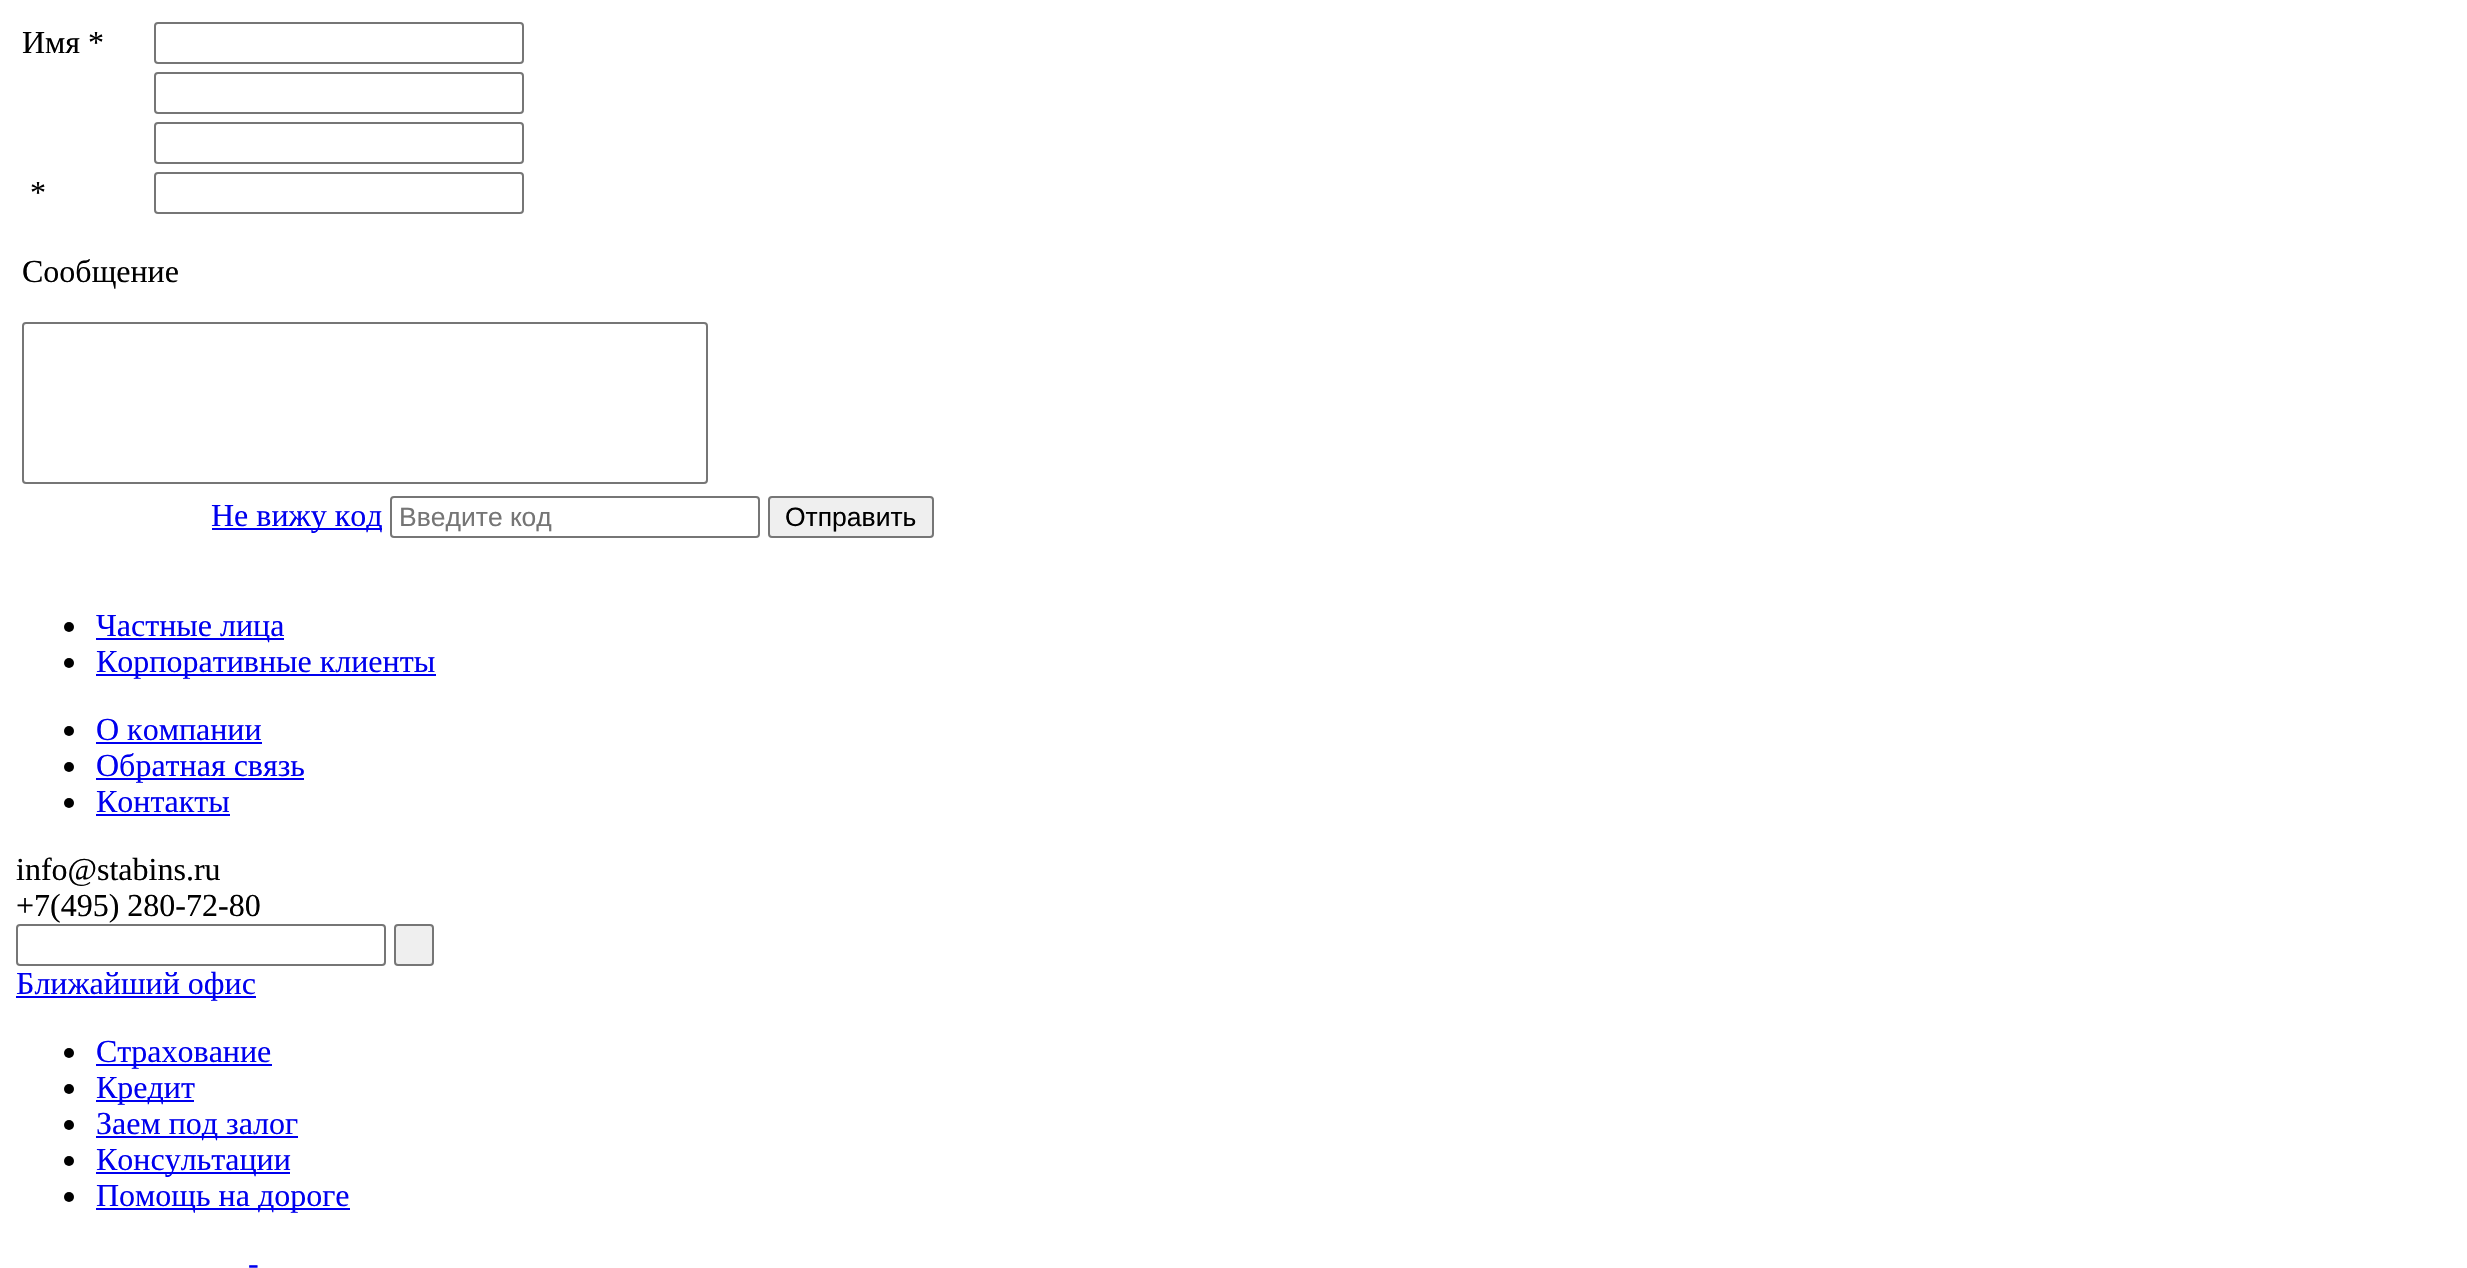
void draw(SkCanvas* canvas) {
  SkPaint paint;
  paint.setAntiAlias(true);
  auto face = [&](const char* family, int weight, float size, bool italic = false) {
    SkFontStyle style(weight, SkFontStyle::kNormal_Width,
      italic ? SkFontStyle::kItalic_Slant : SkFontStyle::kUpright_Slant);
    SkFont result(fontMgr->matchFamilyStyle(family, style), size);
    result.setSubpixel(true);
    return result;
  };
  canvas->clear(0xffffffff);
  paint.setStroke(true);
  paint.setStrokeWidth(2);
  paint.setColor(0xff767676);
  canvas->drawRoundRect(SkRect::MakeXYWH(155, 23, 368, 40), 3, 3, paint);
  canvas->drawRoundRect(SkRect::MakeXYWH(155, 73, 368, 40), 3, 3, paint);
  canvas->drawRoundRect(SkRect::MakeXYWH(155, 123, 368, 40), 3, 3, paint);
  canvas->drawRoundRect(SkRect::MakeXYWH(155, 173, 368, 40), 3, 3, paint);
  canvas->drawRoundRect(SkRect::MakeXYWH(23, 323, 684, 160), 3, 3, paint);
  paint.setStroke(false);
  paint.setColor(0xff0000ee);
  canvas->drawRect(SkRect::MakeXYWH(212, 528, 170, 2), paint);
  paint.setStroke(true);
  paint.setColor(0xff767676);
  canvas->drawRoundRect(SkRect::MakeXYWH(391, 497, 368, 40), 3, 3, paint);
  paint.setStroke(false);
  paint.setColor(0xffefefef);
  canvas->drawRoundRect(SkRect::MakeXYWH(769, 497, 164, 40), 3, 3, paint);
  paint.setStroke(true);
  paint.setColor(0xff767676);
  canvas->drawRoundRect(SkRect::MakeXYWH(769, 497, 164, 40), 3, 3, paint);
  paint.setStroke(false);
  paint.setColor(0xff000000);
  canvas->drawCircle(69, 627, 5, paint);
  paint.setColor(0xff0000ee);
  canvas->drawRect(SkRect::MakeXYWH(96, 638, 188, 2), paint);
  paint.setColor(0xff000000);
  canvas->drawCircle(69, 663, 5, paint);
  paint.setColor(0xff0000ee);
  canvas->drawRect(SkRect::MakeXYWH(96, 674, 340, 2), paint);
  paint.setColor(0xff000000);
  canvas->drawCircle(69, 731, 5, paint);
  paint.setColor(0xff0000ee);
  canvas->drawRect(SkRect::MakeXYWH(96, 742, 166, 2), paint);
  paint.setColor(0xff000000);
  canvas->drawCircle(69, 767, 5, paint);
  paint.setColor(0xff0000ee);
  canvas->drawRect(SkRect::MakeXYWH(96, 778, 208, 2), paint);
  paint.setColor(0xff000000);
  canvas->drawCircle(69, 803, 5, paint);
  paint.setColor(0xff0000ee);
  canvas->drawRect(SkRect::MakeXYWH(96, 814, 134, 2), paint);
  paint.setStroke(true);
  paint.setColor(0xff767676);
  canvas->drawRoundRect(SkRect::MakeXYWH(17, 925, 368, 40), 3, 3, paint);
  paint.setStroke(false);
  paint.setColor(0xffefefef);
  canvas->drawRoundRect(SkRect::MakeXYWH(395, 925, 38, 40), 3, 3, paint);
  paint.setStroke(true);
  paint.setColor(0xff767676);
  canvas->drawRoundRect(SkRect::MakeXYWH(395, 925, 38, 40), 3, 3, paint);
  paint.setStroke(false);
  paint.setColor(0xff0000ee);
  canvas->drawRect(SkRect::MakeXYWH(16, 996, 240, 2), paint);
  paint.setColor(0xff000000);
  canvas->drawCircle(69, 1053, 5, paint);
  paint.setColor(0xff0000ee);
  canvas->drawRect(SkRect::MakeXYWH(96, 1064, 176, 2), paint);
  paint.setColor(0xff000000);
  canvas->drawCircle(69, 1089, 5, paint);
  paint.setColor(0xff0000ee);
  canvas->drawRect(SkRect::MakeXYWH(96, 1100, 98, 2), paint);
  paint.setColor(0xff000000);
  canvas->drawCircle(69, 1125, 5, paint);
  paint.setColor(0xff0000ee);
  canvas->drawRect(SkRect::MakeXYWH(96, 1136, 202, 2), paint);
  paint.setColor(0xff000000);
  canvas->drawCircle(69, 1161, 5, paint);
  paint.setColor(0xff0000ee);
  canvas->drawRect(SkRect::MakeXYWH(96, 1172, 194, 2), paint);
  paint.setColor(0xff000000);
  canvas->drawCircle(69, 1197, 5, paint);
  paint.setColor(0xff0000ee);
  canvas->drawRect(SkRect::MakeXYWH(96, 1208, 254, 2), paint);
  auto f0 = face("Liberation Serif", 400, 32);
  paint.setColor(0xff000000);
  {
    const struct { const char* s; float x, y; } items[] = {
      {"Имя *", 22, 53},
      {"*", 30, 203},
      {"Сообщение", 22, 282},
    };
    for (auto [s, x, y] : items) {
      canvas->drawString(s, x, y, f0, paint);
    }
  }
  paint.setColor(0xff0000ee);
  canvas->drawString("Не вижу код", 211, 526, f0, paint);
  auto f1 = face("Liberation Sans", 400, 26.5f);
  paint.setColor(0xff757575);
  canvas->drawString("Введите код", 399, 526, f1, paint);
  paint.setColor(0xff000000);
  canvas->drawString("Отправить", 785, 526, f1, paint);
  paint.setColor(0xff0000ee);
  {
    const struct { const char* s; float x, y; } items[] = {
      {"Частные лица", 96, 636},
      {"Корпоративные клиенты", 96, 672},
      {"О компании", 96, 740},
      {"Обратная связь", 96, 776},
      {"Контакты", 96, 812},
    };
    for (auto [s, x, y] : items) {
      canvas->drawString(s, x, y, f0, paint);
    }
  }
  paint.setColor(0xff000000);
  canvas->drawString("info@stabins.ru", 16, 880, f0, paint);
  canvas->drawString("+7(495) 280-72-80", 16, 916, f0, paint);
  paint.setColor(0xff0000ee);
  {
    const struct { const char* s; float x, y; } items[] = {
      {"Ближайший офис", 16, 994},
      {"Страхование", 96, 1062},
      {"Кредит", 96, 1098},
      {"Заем под залог", 96, 1134},
      {"Консультации", 96, 1170},
      {"Помощь на дороге", 96, 1206},
      {"-", 248, 1274},
    };
    for (auto [s, x, y] : items) {
      canvas->drawString(s, x, y, f0, paint);
    }
  }
}
